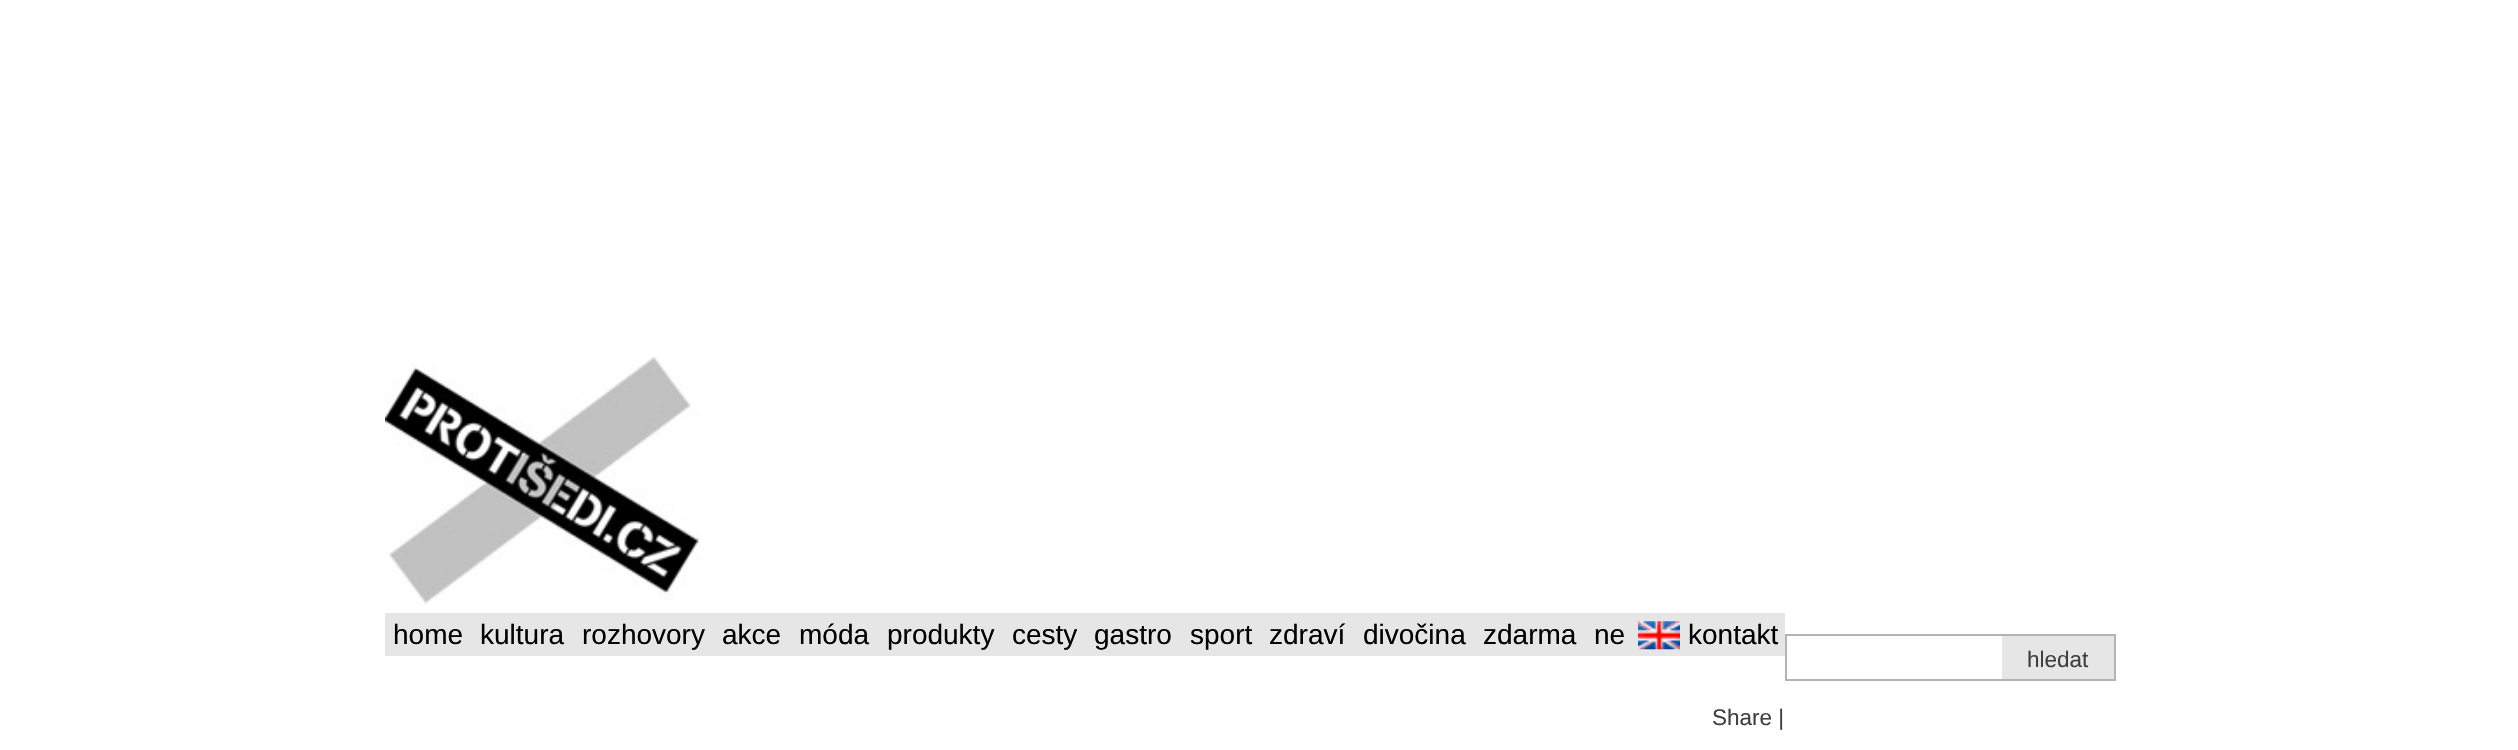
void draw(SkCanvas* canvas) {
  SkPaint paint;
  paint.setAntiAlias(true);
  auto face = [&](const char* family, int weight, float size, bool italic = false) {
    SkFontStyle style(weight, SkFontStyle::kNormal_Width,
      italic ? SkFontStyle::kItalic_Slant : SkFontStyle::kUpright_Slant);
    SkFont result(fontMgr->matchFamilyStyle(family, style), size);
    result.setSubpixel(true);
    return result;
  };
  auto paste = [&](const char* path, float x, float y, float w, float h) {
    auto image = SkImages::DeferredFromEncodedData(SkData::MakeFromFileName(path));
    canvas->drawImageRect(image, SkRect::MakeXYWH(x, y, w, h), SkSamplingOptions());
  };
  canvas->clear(0xffffffff);
  paste("img/1.png", 385, 356, 315, 249);
  paint.setColor(0xffe6e6e6);
  canvas->drawRect(SkRect::MakeXYWH(385, 613, 1400, 43), paint);
  paste("img/2.png", 1638, 621, 42, 29);
  {
    const struct { float x, y, w, h; SkColor color; } items[] = {
      {1785, 634, 331, 2, 0xffb4b4b4},
      {1785, 679, 217, 2, 0xffb4b4b4},
      {1785, 634, 2, 47, 0xffb4b4b4},
      {2002, 636, 112, 43, 0xffe6e6e6},
      {2114, 634, 2, 47, 0xffb4b4b4},
      {2002, 679, 114, 2, 0xffb4b4b4},
    };
    for (auto [x, y, w, h, color] : items) {
      paint.setColor(color);
      canvas->drawRect(SkRect::MakeXYWH(x, y, w, h), paint);
    }
  }
  auto f0 = face("Liberation Sans", 400, 28);
  paint.setColor(0xff000000);
  {
    const struct { const char* s; float x, y; } items[] = {
      {"home", 393, 644},
      {"kultura", 480, 644},
      {"rozhovory", 582, 644},
      {"akce", 722, 644},
      {"móda", 799, 644},
      {"produkty", 887, 644},
      {"cesty", 1012, 644},
      {"gastro", 1094, 644},
      {"sport", 1190, 644},
      {"zdraví", 1269, 644},
      {"divočina", 1363, 644},
      {"zdarma", 1483, 644},
      {"ne", 1594, 644},
      {"kontakt", 1688, 644},
    };
    for (auto [s, x, y] : items) {
      canvas->drawString(s, x, y, f0, paint);
    }
  }
  auto f1 = face("Liberation Sans", 400, 22.5f);
  paint.setColor(0xff3f3f3f);
  canvas->drawString("hledat", 2027, 667, f1, paint);
  canvas->drawString("Share |", 1712, 725, f1, paint);
}
